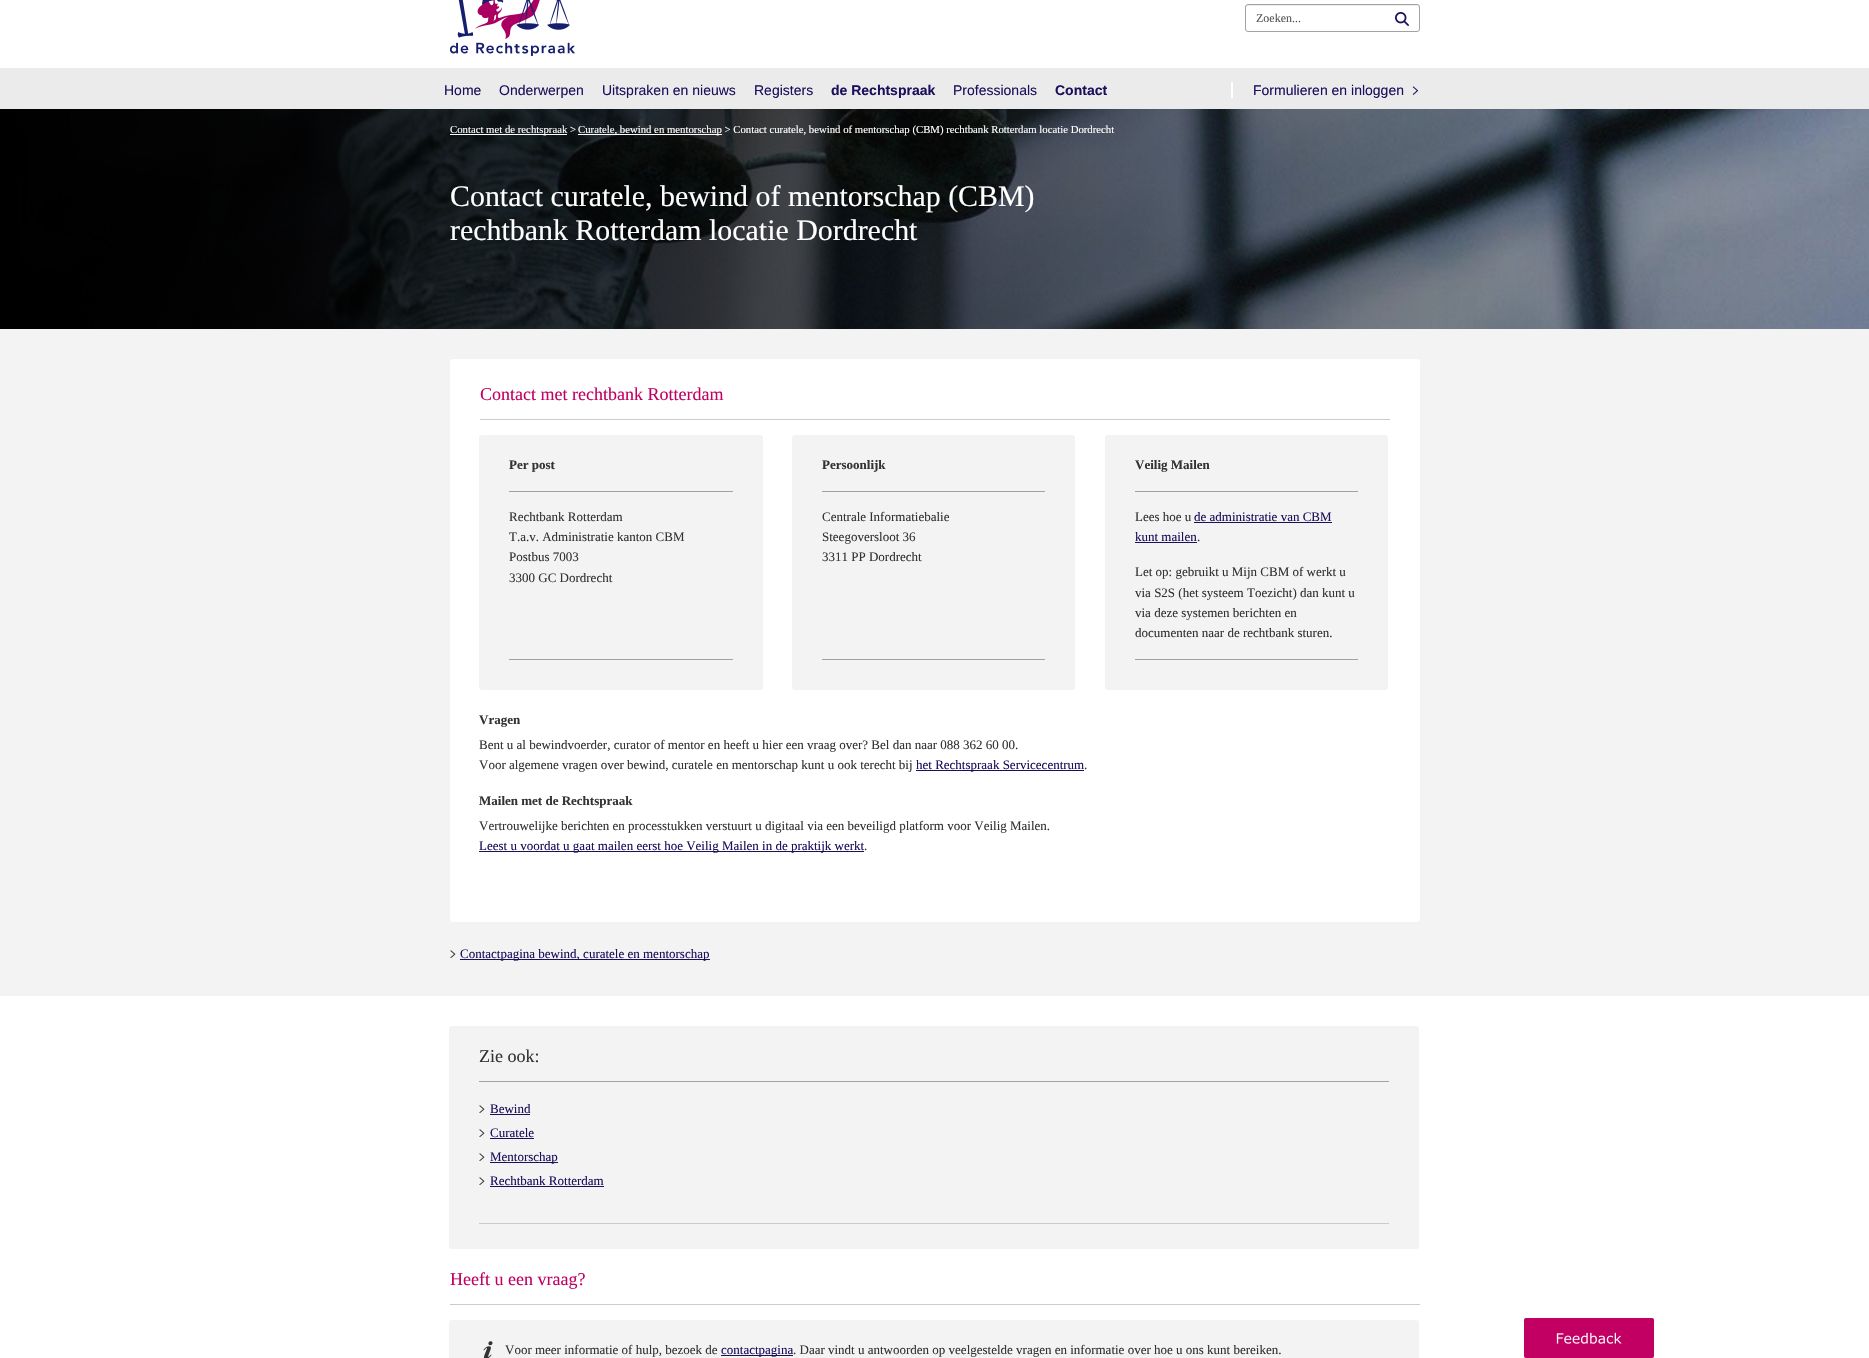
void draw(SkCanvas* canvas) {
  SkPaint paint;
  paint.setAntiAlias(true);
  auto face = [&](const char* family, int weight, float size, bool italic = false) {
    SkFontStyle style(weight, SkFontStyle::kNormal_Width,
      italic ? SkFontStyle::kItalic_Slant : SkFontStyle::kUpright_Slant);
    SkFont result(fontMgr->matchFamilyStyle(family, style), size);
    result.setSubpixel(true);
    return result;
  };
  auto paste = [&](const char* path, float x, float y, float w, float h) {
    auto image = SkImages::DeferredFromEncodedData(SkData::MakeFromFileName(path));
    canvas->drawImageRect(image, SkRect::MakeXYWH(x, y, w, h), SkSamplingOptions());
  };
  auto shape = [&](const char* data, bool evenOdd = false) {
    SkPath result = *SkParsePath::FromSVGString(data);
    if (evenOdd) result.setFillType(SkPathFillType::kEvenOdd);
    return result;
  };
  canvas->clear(0xffffffff);
  paste("img/1.png", 450, 0, 125, 56);
  paint.setColor(0xffebebeb);
  canvas->drawRect(SkRect::MakeXYWH(0, 68, 1869, 41), paint);
  paint.setColor(0xffececec);
  canvas->drawPath(shape("M1248 6H1417C1418 6 1419 7 1419 8C1419 7 1419 5 1417 5H1247C1246 6 1246 7 1246 8C1246 7 1247 6 1248 6Z"), paint);
  paint.setStroke(true);
  paint.setStrokeWidth(1);
  paint.setColor(0xffa2a2a2);
  canvas->drawRoundRect(SkRect::MakeXYWH(1245.5f, 4.5f, 174, 27), 2.5f, 2.5f, paint);
  paste("img/2.png", 1395, 12, 14, 14);
  paint.setStroke(false);
  paint.setColor(0xffffffff);
  canvas->drawRect(SkRect::MakeXYWH(1231, 82, 2, 16), paint);
  paste("img/3.png", 1412, 86, 6, 9);
  paste("img/4.png", 0, 109, 1869, 220);
  {
    const struct { float x, y, w, h; SkColor color; } items[] = {
      {450, 134, 117, 1, 0xffffffff},
      {578, 134, 144, 1, 0xffffffff},
      {0, 329, 1869, 667, 0xfff3f3f3},
    };
    for (auto [x, y, w, h, color] : items) {
      paint.setColor(color);
      canvas->drawRect(SkRect::MakeXYWH(x, y, w, h), paint);
    }
  }
  paint.setColor(0xffffffff);
  canvas->drawRoundRect(SkRect::MakeXYWH(450, 359, 970, 563), 3, 3, paint);
  paint.setColor(0xffcbcbcb);
  canvas->drawRect(SkRect::MakeXYWH(480, 419, 910, 1), paint);
  paint.setColor(0xfff3f3f3);
  canvas->drawRoundRect(SkRect::MakeXYWH(479, 435, 284, 255), 3, 3, paint);
  paint.setColor(0xffa2a2a2);
  canvas->drawRect(SkRect::MakeXYWH(509, 491, 224, 1), paint);
  canvas->drawRect(SkRect::MakeXYWH(509, 659, 224, 1), paint);
  paint.setColor(0xfff3f3f3);
  canvas->drawRoundRect(SkRect::MakeXYWH(792, 435, 283, 255), 3, 3, paint);
  paint.setColor(0xffa2a2a2);
  canvas->drawRect(SkRect::MakeXYWH(822, 491, 223, 1), paint);
  canvas->drawRect(SkRect::MakeXYWH(822, 659, 223, 1), paint);
  paint.setColor(0xfff3f3f3);
  canvas->drawRoundRect(SkRect::MakeXYWH(1105, 435, 283, 255), 3, 3, paint);
  {
    const struct { float x, y, w, h; SkColor color; } items[] = {
      {1135, 491, 223, 1, 0xffa2a2a2},
      {1135, 659, 223, 1, 0xffa2a2a2},
      {1194, 522, 138, 1, 0xff1b105c},
      {1135, 542, 62, 1, 0xff1b105c},
      {916, 770, 168, 1, 0xff1b105c},
      {479, 851, 385, 1, 0xff1b105c},
    };
    for (auto [x, y, w, h, color] : items) {
      paint.setColor(color);
      canvas->drawRect(SkRect::MakeXYWH(x, y, w, h), paint);
    }
  }
  paste("img/5.png", 450, 950, 6, 8);
  canvas->drawRect(SkRect::MakeXYWH(460, 959, 250, 1), paint);
  paint.setColor(0xfff3f3f3);
  canvas->drawRoundRect(SkRect::MakeXYWH(449, 1026, 970, 223), 3, 3, paint);
  paint.setColor(0xffa2a2a2);
  canvas->drawRect(SkRect::MakeXYWH(479, 1081, 910, 1), paint);
  paint.setColor(0xffcbcbcb);
  canvas->drawRect(SkRect::MakeXYWH(479, 1223, 910, 1), paint);
  paste("img/5.png", 479, 1105, 6, 8);
  paint.setColor(0xff1b105c);
  canvas->drawRect(SkRect::MakeXYWH(490, 1114, 40, 1), paint);
  paste("img/5.png", 479, 1129, 6, 8);
  canvas->drawRect(SkRect::MakeXYWH(490, 1138, 44, 1), paint);
  paste("img/5.png", 479, 1153, 6, 8);
  canvas->drawRect(SkRect::MakeXYWH(490, 1162, 68, 1), paint);
  paste("img/5.png", 479, 1177, 6, 8);
  canvas->drawRect(SkRect::MakeXYWH(490, 1186, 114, 1), paint);
  paint.setColor(0xffcbcbcb);
  canvas->drawRect(SkRect::MakeXYWH(450, 1304, 970, 1), paint);
  paint.setColor(0xfff3f3f3);
  canvas->drawRoundRect(SkRect::MakeXYWH(449, 1320, 970, 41), 3, 3, paint);
  paste("img/6.png", 483, 1341, 10, 17);
  paint.setColor(0xff1b105c);
  canvas->drawRect(SkRect::MakeXYWH(721, 1355, 72, 1), paint);
  paste("img/7.png", 1524, 1318, 130, 40);
  auto f0 = face("Liberation Serif", 400, 12);
  paint.setColor(0xff555555);
  canvas->drawString("Zoeken...", 1256, 22, f0, paint);
  auto f1 = face("Liberation Sans", 400, 14);
  paint.setColor(0xff1b105c);
  {
    const struct { const char* s; float x, y; } items[] = {
      {"Home", 444, 95},
      {"Onderwerpen", 499, 95},
      {"Uitspraken en nieuws", 602, 95},
      {"Registers", 754, 95},
    };
    for (auto [s, x, y] : items) {
      canvas->drawString(s, x, y, f1, paint);
    }
  }
  auto f2 = face("Liberation Sans", 700, 14);
  canvas->drawString("de Rechtspraak", 831, 95, f2, paint);
  canvas->drawString("Professionals", 953, 95, f1, paint);
  canvas->drawString("Contact", 1055, 95, f2, paint);
  canvas->drawString("Formulieren en inloggen", 1253, 95, f1, paint);
  auto f3 = face("Liberation Serif", 400, 10.75f);
  paint.setColor(0xffffffff);
  canvas->drawString("Contact met de rechtspraak >", 450, 133, f3, paint);
  canvas->drawString("Curatele, bewind en mentorschap > Contact curatele, bewind of mentorschap (CBM) rechtbank Rotterdam locatie Dordrecht", 578, 133, f3, paint);
  auto f4 = face("Liberation Serif", 400, 29.9f);
  canvas->drawString("Contact curatele, bewind of mentorschap (CBM)", 450, 206, f4, paint);
  canvas->drawString("rechtbank Rotterdam locatie Dordrecht", 450, 240, f4, paint);
  auto f5 = face("Liberation Serif", 400, 18);
  paint.setColor(0xffc20063);
  canvas->drawString("Contact met rechtbank Rotterdam", 480, 400, f5, paint);
  auto f6 = face("Liberation Serif", 700, 13);
  paint.setColor(0xff333333);
  canvas->drawString("Per post", 509, 469, f6, paint);
  auto f7 = face("Liberation Serif", 400, 13);
  {
    const struct { const char* s; float x, y; } items[] = {
      {"Rechtbank Rotterdam", 509, 521},
      {"T.a.v. Administratie kanton CBM", 509, 541},
      {"Postbus 7003", 509, 561},
      {"3300 GC Dordrecht", 509, 582},
    };
    for (auto [s, x, y] : items) {
      canvas->drawString(s, x, y, f7, paint);
    }
  }
  canvas->drawString("Persoonlijk", 822, 469, f6, paint);
  {
    const struct { const char* s; float x, y; } items[] = {
      {"Centrale Informatiebalie", 822, 521},
      {"Steegoversloot 36", 822, 541},
      {"3311 PP Dordrecht", 822, 561},
    };
    for (auto [s, x, y] : items) {
      canvas->drawString(s, x, y, f7, paint);
    }
  }
  canvas->drawString("Veilig Mailen", 1135, 469, f6, paint);
  canvas->drawString("Lees hoe u", 1135, 521, f7, paint);
  paint.setColor(0xff1b105c);
  canvas->drawString("de administratie van CBM", 1194, 521, f7, paint);
  canvas->drawString("kunt mailen", 1135, 541, f7, paint);
  paint.setColor(0xff333333);
  {
    const struct { const char* s; float x, y; } items[] = {
      {".", 1197, 541},
      {"Let op: gebruikt u Mijn CBM of werkt u", 1135, 576},
      {"via S2S (het systeem Toezicht) dan kunt u", 1135, 597},
      {"via deze systemen berichten en", 1135, 617},
      {"documenten naar de rechtbank sturen.", 1135, 637},
    };
    for (auto [s, x, y] : items) {
      canvas->drawString(s, x, y, f7, paint);
    }
  }
  canvas->drawString("Vragen", 479, 724, f6, paint);
  canvas->drawString("Bent u al bewindvoerder, curator of mentor en heeft u hier een vraag over? Bel dan naar 088 362 60 00.", 479, 749, f7, paint);
  canvas->drawString("Voor algemene vragen over bewind, curatele en mentorschap kunt u ook terecht bij", 479, 769, f7, paint);
  paint.setColor(0xff1b105c);
  canvas->drawString("het Rechtspraak Servicecentrum", 916, 769, f7, paint);
  paint.setColor(0xff333333);
  canvas->drawString(".", 1084, 769, f7, paint);
  canvas->drawString("Mailen met de Rechtspraak", 479, 805, f6, paint);
  canvas->drawString("Vertrouwelijke berichten en processtukken verstuurt u digitaal via een beveiligd platform voor Veilig Mailen.", 479, 830, f7, paint);
  paint.setColor(0xff1b105c);
  canvas->drawString("Leest u voordat u gaat mailen eerst hoe Veilig Mailen in de praktijk werkt", 479, 850, f7, paint);
  paint.setColor(0xff333333);
  canvas->drawString(".", 864, 850, f7, paint);
  paint.setColor(0xff1b105c);
  canvas->drawString("Contactpagina bewind, curatele en mentorschap", 460, 958, f7, paint);
  paint.setColor(0xff333333);
  canvas->drawString("Zie ook:", 479, 1062, f5, paint);
  paint.setColor(0xff1b105c);
  {
    const struct { const char* s; float x, y; } items[] = {
      {"Bewind", 490, 1113},
      {"Curatele", 490, 1137},
      {"Mentorschap", 490, 1161},
      {"Rechtbank Rotterdam", 490, 1185},
    };
    for (auto [s, x, y] : items) {
      canvas->drawString(s, x, y, f7, paint);
    }
  }
  paint.setColor(0xffc20063);
  canvas->drawString("Heeft u een vraag?", 450, 1285, f5, paint);
  paint.setColor(0xff333333);
  canvas->drawString("Voor meer informatie of hulp, bezoek de", 505, 1354, f7, paint);
  paint.setColor(0xff1b105c);
  canvas->drawString("contactpagina", 721, 1354, f7, paint);
  paint.setColor(0xff333333);
  canvas->drawString(". Daar vindt u antwoorden op veelgestelde vragen en informatie over hoe u ons kunt bereiken.", 793, 1354, f7, paint);
}
